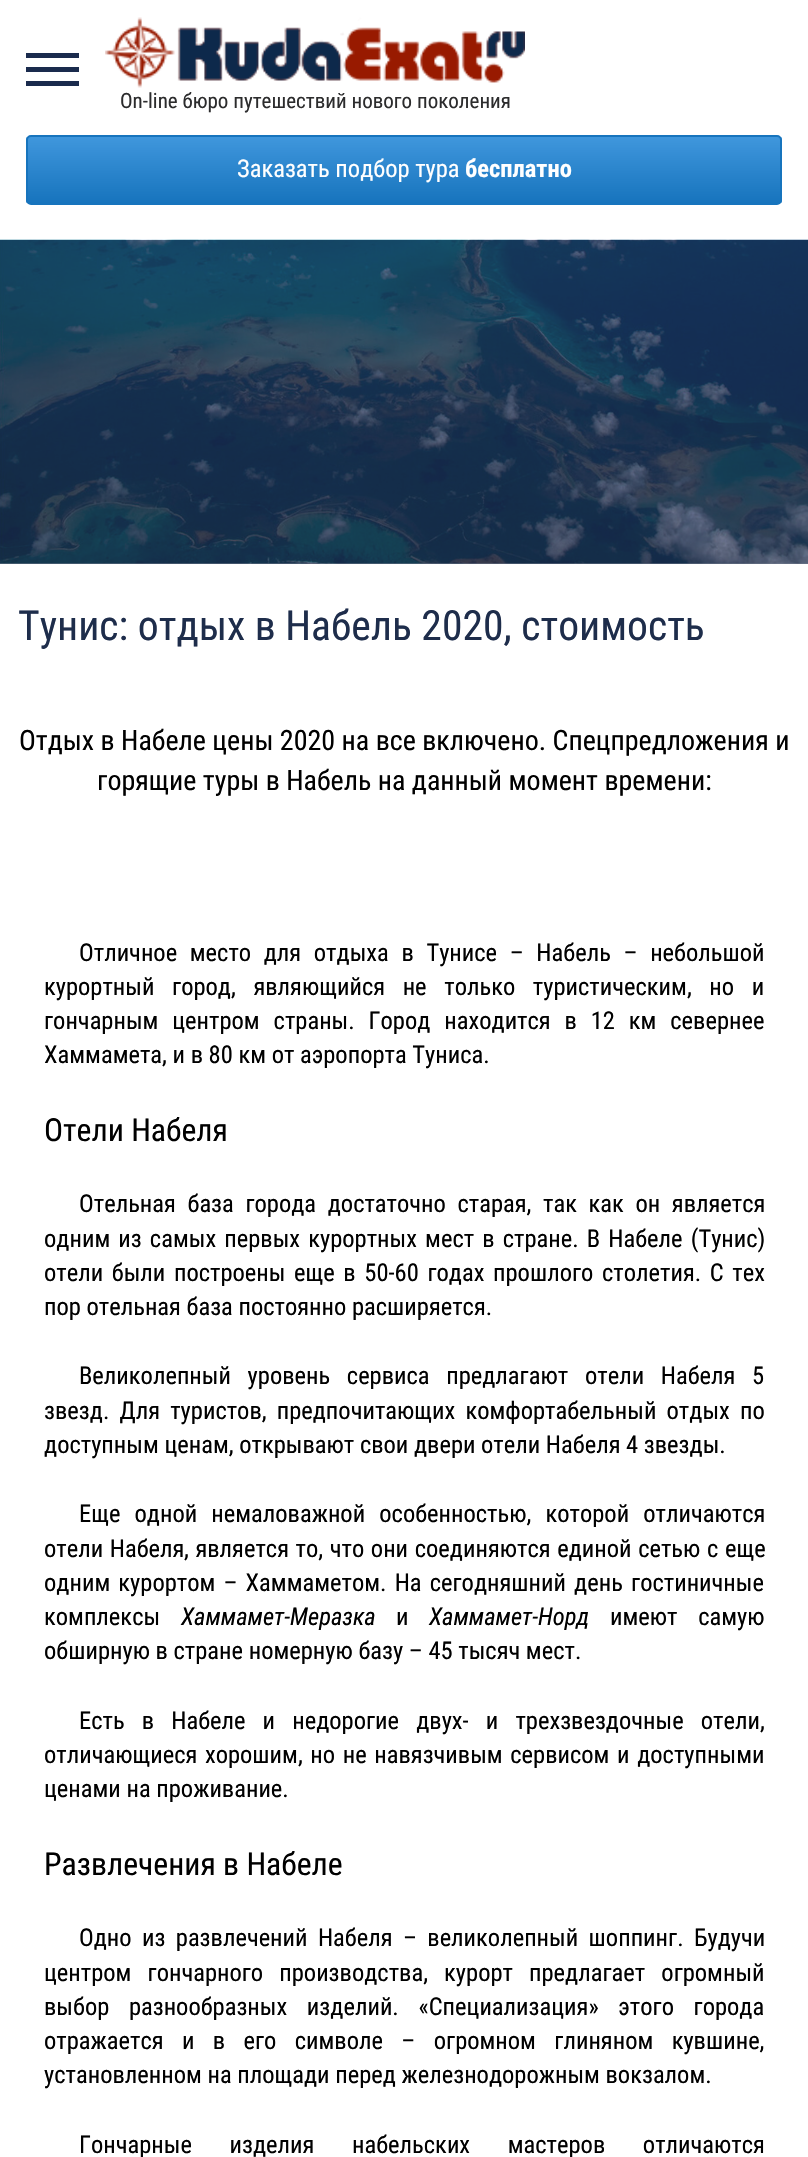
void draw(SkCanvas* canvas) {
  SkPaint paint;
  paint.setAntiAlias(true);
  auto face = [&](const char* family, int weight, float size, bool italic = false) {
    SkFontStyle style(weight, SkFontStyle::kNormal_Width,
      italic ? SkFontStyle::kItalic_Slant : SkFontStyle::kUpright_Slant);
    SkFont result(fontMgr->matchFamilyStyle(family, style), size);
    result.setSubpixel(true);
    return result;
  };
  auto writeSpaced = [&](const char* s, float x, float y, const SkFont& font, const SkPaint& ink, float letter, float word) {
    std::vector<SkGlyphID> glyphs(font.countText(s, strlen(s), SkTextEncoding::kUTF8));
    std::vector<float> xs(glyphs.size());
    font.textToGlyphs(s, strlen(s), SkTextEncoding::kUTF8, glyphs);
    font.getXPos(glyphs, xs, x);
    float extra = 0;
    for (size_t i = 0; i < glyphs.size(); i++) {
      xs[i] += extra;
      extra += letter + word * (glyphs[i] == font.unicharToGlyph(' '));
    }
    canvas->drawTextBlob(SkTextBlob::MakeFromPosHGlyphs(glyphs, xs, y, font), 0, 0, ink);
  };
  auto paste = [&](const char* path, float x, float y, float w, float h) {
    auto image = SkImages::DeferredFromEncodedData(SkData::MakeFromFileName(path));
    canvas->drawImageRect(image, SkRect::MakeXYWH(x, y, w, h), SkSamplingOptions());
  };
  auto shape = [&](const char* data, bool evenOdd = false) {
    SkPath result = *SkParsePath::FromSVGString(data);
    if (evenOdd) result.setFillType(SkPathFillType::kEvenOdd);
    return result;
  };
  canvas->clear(0xffffffff);
  {
    const struct { float x, y, w, h; SkColor color; } items[] = {
      {0, 563, 808, 1, 0xff6d778a},
      {26, 53, 53, 5, 0xff1a2b4d},
      {26, 67, 53, 5, 0xff1a2b4d},
      {26, 81, 53, 5, 0xff1a2b4d},
    };
    for (auto [x, y, w, h, color] : items) {
      paint.setColor(color);
      canvas->drawRect(SkRect::MakeXYWH(x, y, w, h), paint);
    }
  }
  paste("img/1.png", 105, 17, 420, 71);
  canvas->save();
  canvas->clipPath(shape("M31 135H777C780 135 782 137 782 140V200C782 203 780 205 777 205H31C28 205 26 203 26 200V140C26 137 28 135 31 135Z"), true);
  {
    const SkColor colors[] = {0xff4097dd, 0xff1774bd};
    const float stops[] = {0, 1};
    const SkPoint ends[] = {{404, 136}, {404, 203}};
    paint.setShader(SkGradientShader::MakeLinear(ends, colors, stops, 2, SkTileMode::kClamp));
    paint.setAlpha(255);
  }
  canvas->drawRect(SkRect::MakeXYWH(26, 137, 756, 66), paint);
  canvas->restore();
  paint.setStroke(true);
  paint.setStrokeWidth(2);
  paint.setShader(nullptr);
  paint.setColor(0xff1774bd);
  canvas->drawRoundRect(SkRect::MakeXYWH(27, 136, 754, 68), 4, 4, paint);
  paste("img/2.png", 0, 239, 808, 325);
  auto f0 = face("Roboto Condensed", 400, 21);
  paint.setStroke(false);
  paint.setColor(0xff2c2c2d);
  canvas->drawString("On-line бюро путешествий нового поколения", 120, 108, f0, paint);
  auto f1 = face("Roboto Condensed", 400, 24.5f);
  paint.setColor(0xffffffff);
  canvas->drawString("Заказать подбор тура", 237, 177, f1, paint);
  auto f2 = face("Roboto Condensed", 700, 24.5f);
  canvas->drawString("бесплатно", 465, 177, f2, paint);
  auto f3 = face("Roboto Condensed", 400, 41.6f);
  paint.setColor(0xff1e2d4b);
  canvas->drawString("Тунис: отдых в Набель 2020, стоимость", 18, 640, f3, paint);
  auto f4 = face("Roboto Condensed", 400, 28);
  paint.setColor(0xff000000);
  canvas->drawString("Отдых в Набеле цены 2020 на все включено. Спецпредложения и", 19, 750, f4, paint);
  canvas->drawString("горящие туры в Набель на данный момент времени:", 97, 790, f4, paint);
  writeSpaced("Отличное место для отдыха в Тунисе – Набель – небольшой", 79, 961, f1, paint, 0, 7);
  writeSpaced("курортный город, являющийся не только туристическим, но и", 44, 995, f1, paint, 0, 12);
  writeSpaced("гончарным центром страны. Город находится в 12 км севернее", 44, 1029, f1, paint, 0, 8.25f);
  canvas->drawString("Хаммамета, и в 80 км от аэропорта Туниса.", 44, 1063, f1, paint);
  auto f5 = face("Roboto Condensed", 400, 31.75f);
  canvas->drawString("Отели Набеля", 44, 1141, f5, paint);
  writeSpaced("Отельная база города достаточно старая, так как он является", 79, 1212, f1, paint, 0, 6);
  writeSpaced("одним из самых первых курортных мест в стране. В Набеле (Тунис)", 44, 1247, f1, paint, 0, 2.5f);
  writeSpaced("отели были построены еще в 50-60 годах прошлого столетия. С тех", 44, 1281, f1, paint, 0, 3);
  canvas->drawString("пор отельная база постоянно расширяется.", 44, 1315, f1, paint);
  writeSpaced("Великолепный уровень сервиса предлагают", 79, 1384, f1, paint, 0, 11);
  writeSpaced("отели Набеля 5", 585, 1384, f1, paint, 0, 11);
  canvas->drawString("звезд", 44, 1419, f1, paint);
  writeSpaced(". Для туристов, предпочитающих комфортабельный отдых по", 103, 1419, f1, paint, 0, 4.5f);
  canvas->drawString("доступным ценам, открывают свои двери отели Набеля 4 звезды.", 44, 1453, f1, paint);
  writeSpaced("Еще одной немаловажной особенностью, которой отличаются", 79, 1522, f1, paint, 0, 8.5f);
  writeSpaced("отели Набеля", 44, 1557, f1, paint, 0, 1);
  writeSpaced(", является то, что они соединяются единой сетью с еще", 184, 1557, f1, paint, 0, 1);
  writeSpaced("одним курортом – Хаммаметом. На сегодняшний день гостиничные", 44, 1591, f1, paint, 0, 2.5f);
  canvas->drawString("комплексы", 44, 1625, f1, paint);
  auto f6 = face("Roboto Condensed", 400, 24.5f, true);
  canvas->drawString("Хаммамет-Меразка", 181, 1625, f6, paint);
  canvas->drawString("и", 396, 1625, f1, paint);
  canvas->drawString("Хаммамет-Норд", 429, 1625, f6, paint);
  writeSpaced("имеют самую", 610, 1625, f1, paint, 0, 15);
  canvas->drawString("обширную в стране номерную базу – 45 тысяч мест.", 44, 1659, f1, paint);
  writeSpaced("Есть в Набеле и недорогие двух- и трехзвездочные отели,", 79, 1729, f1, paint, 0, 11.5f);
  writeSpaced("отличающиеся хорошим, но не навязчивым сервисом и доступными", 44, 1763, f1, paint, 0, 2);
  canvas->drawString("ценами на проживание.", 44, 1797, f1, paint);
  canvas->drawString("Развлечения в Набеле", 44, 1875, f5, paint);
  writeSpaced("Одно из развлечений Набеля – великолепный шоппинг. Будучи", 79, 1946, f1, paint, 0, 4.75f);
  writeSpaced("центром гончарного производства, курорт предлагает огромный", 44, 1981, f1, paint, 0, 10.5f);
  writeSpaced("выбор разнообразных изделий. «Специализация» этого города", 44, 2015, f1, paint, 0, 14);
  writeSpaced("отражается и в его символе – огромном глиняном кувшине,", 44, 2049, f1, paint, 0, 12.75f);
  canvas->drawString("установленном на площади перед железнодорожным вокзалом.", 44, 2083, f1, paint);
  writeSpaced("Гончарные изделия набельских мастеров отличаются", 79, 2153, f1, paint, 0, 32);
}
